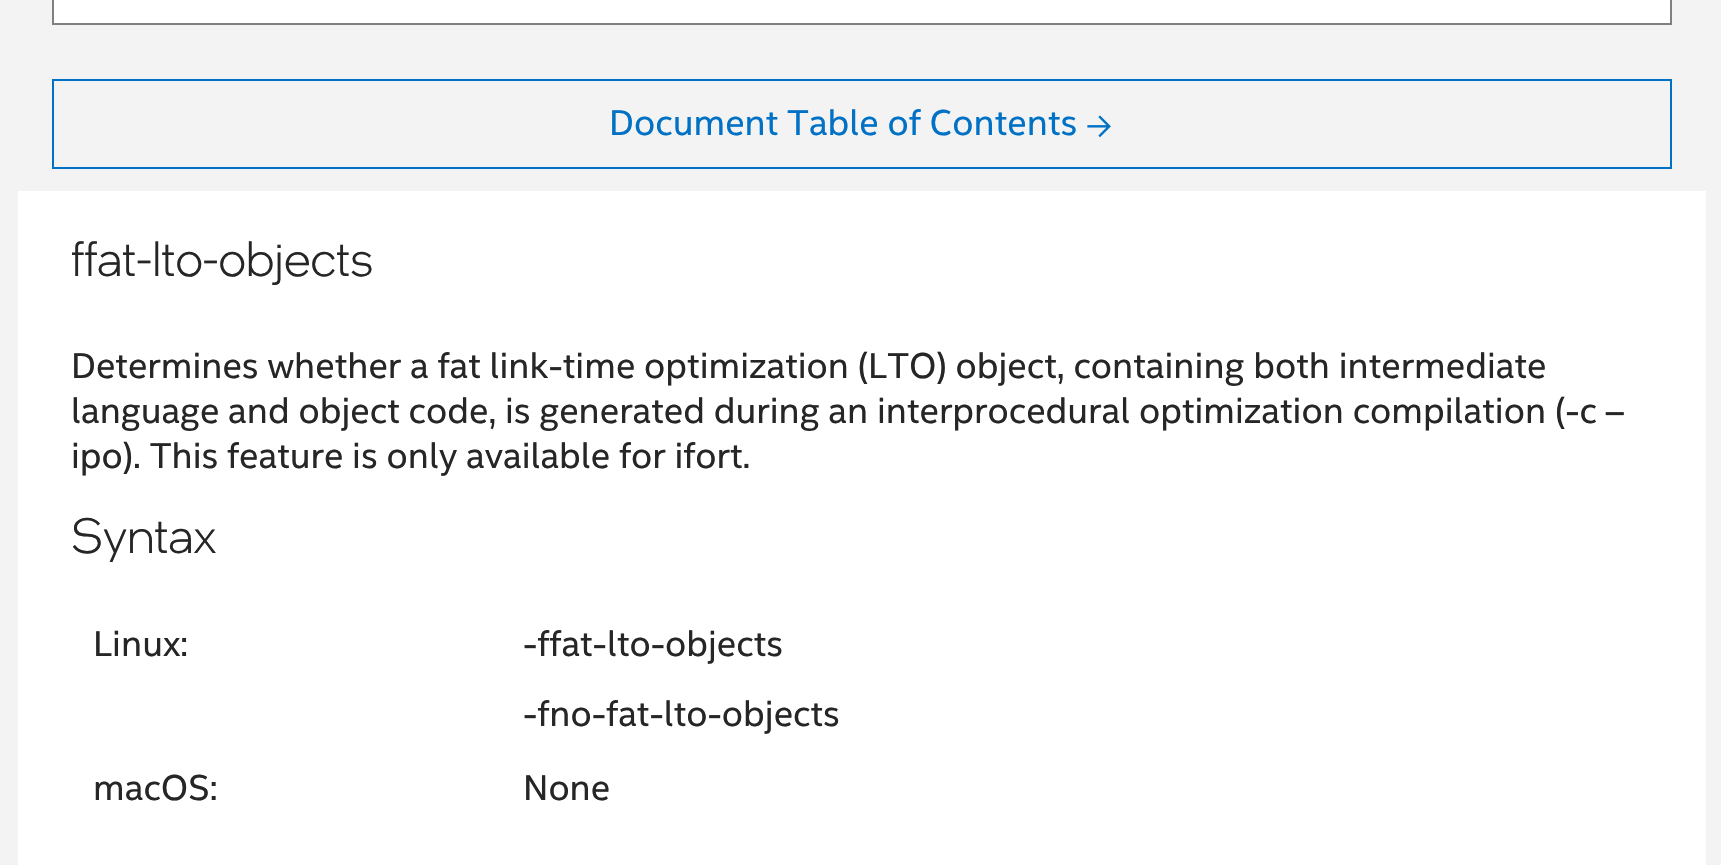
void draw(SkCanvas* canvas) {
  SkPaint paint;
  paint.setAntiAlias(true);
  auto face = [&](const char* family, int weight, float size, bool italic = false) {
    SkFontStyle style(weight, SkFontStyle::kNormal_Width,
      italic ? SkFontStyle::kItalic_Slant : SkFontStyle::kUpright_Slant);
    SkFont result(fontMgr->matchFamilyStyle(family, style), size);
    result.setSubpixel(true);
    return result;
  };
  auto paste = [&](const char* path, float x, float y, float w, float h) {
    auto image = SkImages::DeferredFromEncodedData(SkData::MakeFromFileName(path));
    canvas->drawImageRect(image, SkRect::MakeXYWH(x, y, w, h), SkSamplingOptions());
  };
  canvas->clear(0xfff3f3f3);
  paint.setColor(0xffffffff);
  canvas->drawRect(SkRect::MakeXYWH(53, -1, 1618, 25), paint);
  paint.setStroke(true);
  paint.setStrokeWidth(2);
  paint.setColor(0xff808080);
  canvas->drawRect(SkRect::MakeXYWH(53, -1, 1618, 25), paint);
  paint.setColor(0xff0071c5);
  canvas->drawRect(SkRect::MakeXYWH(53, 80, 1618, 88), paint);
  paste("img/1.png", 1087, 115, 24, 23);
  paint.setStroke(false);
  paint.setColor(0xffffffff);
  canvas->drawRect(SkRect::MakeXYWH(18, 191, 1688, 674), paint);
  auto f0 = face("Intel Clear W", 400, 36);
  paint.setColor(0xff0071c5);
  canvas->drawString("Document Table of Contents", 609, 135, f0, paint);
  auto f1 = face("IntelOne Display", 300, 49.5f);
  paint.setColor(0xff262626);
  canvas->drawString("ffat-lto-objects", 71, 276, f1, paint);
  {
    const struct { const char* s; float x, y; } items[] = {
      {"Determines whether a fat link-time optimization (LTO) object, containing both intermediate", 71, 378},
      {"language and object code, is generated during an interprocedural optimization compilation (-c –", 71, 423},
      {"ipo). This feature is only available for ifort.", 71, 468},
    };
    for (auto [s, x, y] : items) {
      canvas->drawString(s, x, y, f0, paint);
    }
  }
  canvas->drawString("Syntax", 71, 553, f1, paint);
  {
    const struct { const char* s; float x, y; } items[] = {
      {"Linux:", 93, 656},
      {"-ffat-lto-objects", 523, 656},
      {"-fno-fat-lto-objects", 523, 726},
      {"macOS:", 93, 800},
      {"None", 523, 800},
    };
    for (auto [s, x, y] : items) {
      canvas->drawString(s, x, y, f0, paint);
    }
  }
}
